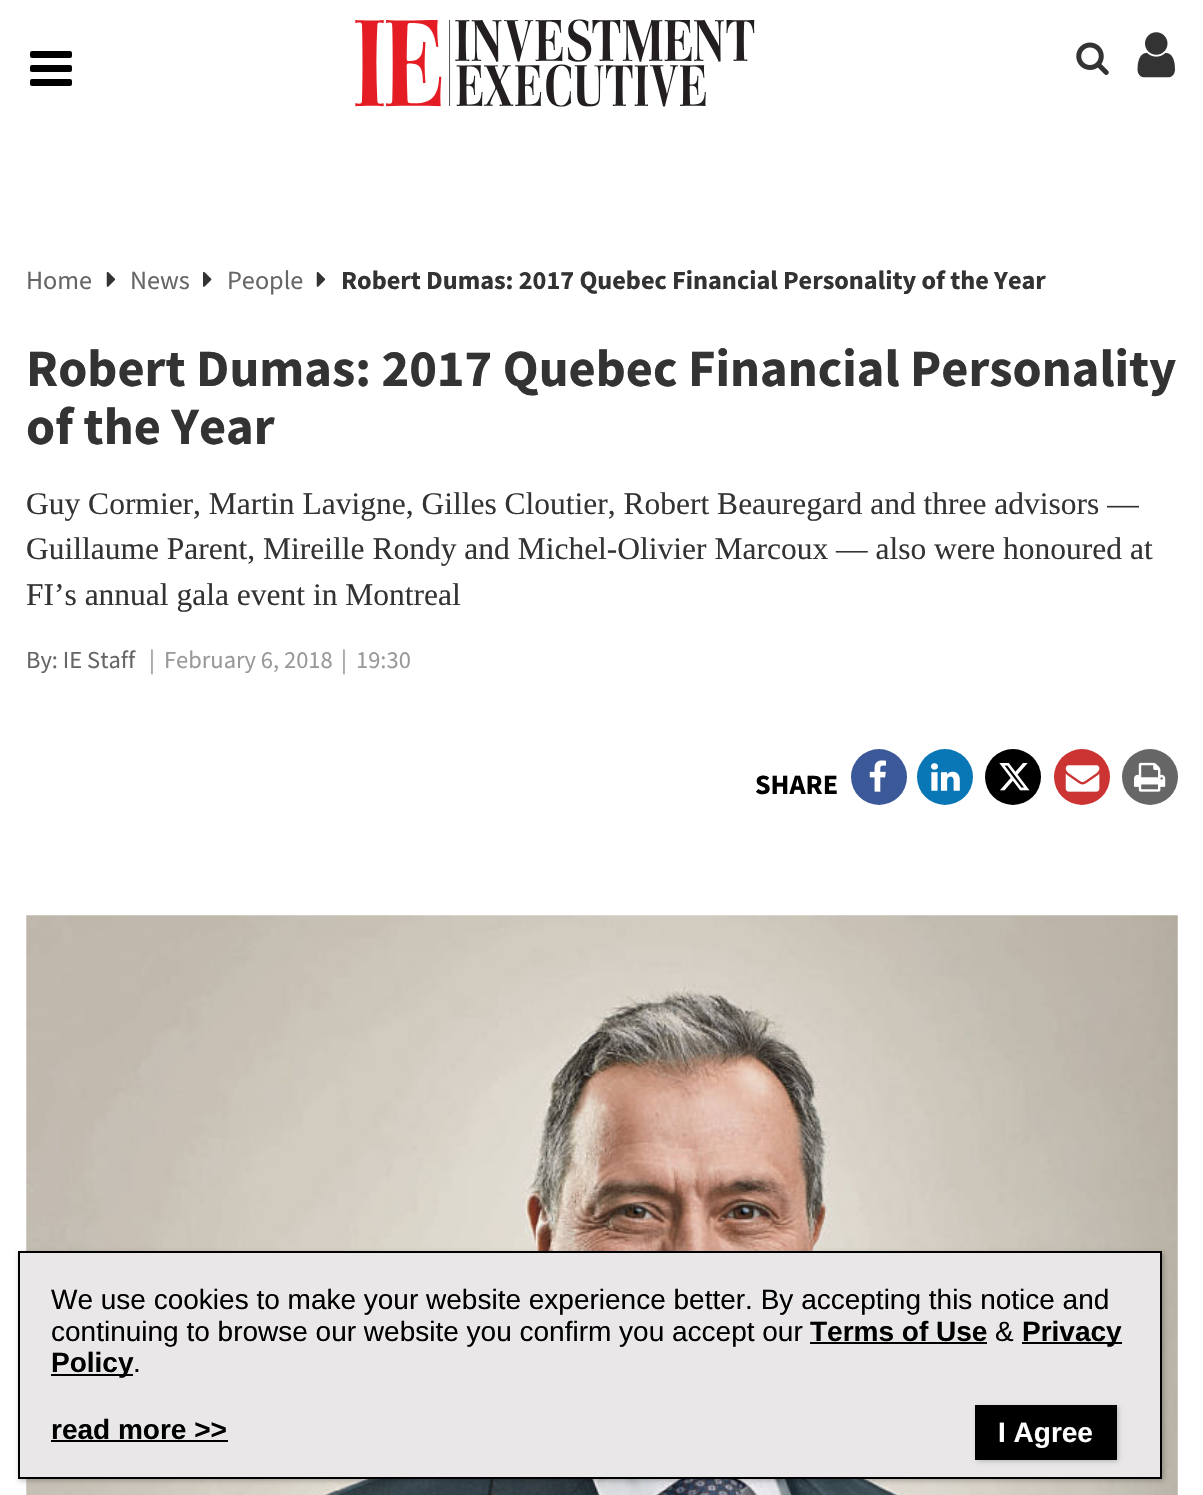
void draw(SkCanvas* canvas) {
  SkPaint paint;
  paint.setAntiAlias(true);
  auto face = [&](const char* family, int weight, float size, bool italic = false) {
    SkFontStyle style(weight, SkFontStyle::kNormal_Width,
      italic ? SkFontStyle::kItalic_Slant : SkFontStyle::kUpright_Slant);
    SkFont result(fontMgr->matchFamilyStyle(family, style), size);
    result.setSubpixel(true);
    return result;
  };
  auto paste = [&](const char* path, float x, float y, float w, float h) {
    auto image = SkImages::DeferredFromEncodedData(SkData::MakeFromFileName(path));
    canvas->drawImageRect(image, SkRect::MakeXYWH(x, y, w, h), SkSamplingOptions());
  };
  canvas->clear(0xffffffff);
  paint.setColor(0xff000000);
  canvas->drawRoundRect(SkRect::MakeXYWH(30, 51, 42, 7), 2, 2, paint);
  canvas->drawRoundRect(SkRect::MakeXYWH(30, 65, 42, 7), 2, 2, paint);
  canvas->drawRoundRect(SkRect::MakeXYWH(30, 79, 42, 7), 2, 2, paint);
  paste("img/1.png", 355, 19, 400, 88);
  paste("img/2.png", 1076, 42, 33, 33);
  paste("img/3.png", 1137, 32, 38, 46);
  paste("img/4.png", 106, 271, 10, 16);
  paste("img/5.png", 203, 271, 9, 16);
  paste("img/4.png", 316, 271, 10, 16);
  paint.setColor(0xff3b5998);
  canvas->drawCircle(879, 777, 28, paint);
  paste("img/6.png", 869, 760, 17, 32);
  paint.setColor(0xff0977b5);
  canvas->drawCircle(945, 777, 28, paint);
  paste("img/7.png", 931, 763, 29, 28);
  paint.setColor(0xff000000);
  canvas->drawCircle(1013, 777, 28, paint);
  paste("img/8.png", 999, 763, 31, 28);
  paint.setColor(0xffcc3333);
  canvas->drawCircle(1082, 777, 28, paint);
  paste("img/9.png", 1065, 765, 35, 27);
  paint.setColor(0xff666666);
  canvas->drawCircle(1150, 777, 28, paint);
  paste("img/10.png", 1134, 762, 32, 30);
  paste("img/11.png", 26, 915, 1152, 580);
  paint.setColor(0x3b020202);
  paint.setMaskFilter(SkMaskFilter::MakeBlur(kNormal_SkBlurStyle, 2.5f));
  canvas->drawRect(SkRect::MakeXYWH(19, 1253, 1145, 228), paint);
  paint.setMaskFilter(nullptr);
  paint.setColor(0xffe9e7e8);
  canvas->drawRect(SkRect::MakeXYWH(19, 1252, 1142, 226), paint);
  paint.setStroke(true);
  paint.setStrokeWidth(2);
  paint.setColor(0xff000000);
  canvas->drawRect(SkRect::MakeXYWH(19, 1252, 1142, 226), paint);
  paint.setStroke(false);
  {
    const struct { float x, y, w, h; SkColor color; } items[] = {
      {810, 1342, 177, 2, 0xff000000},
      {1022, 1342, 100, 2, 0xff000000},
      {51, 1374, 82, 2, 0xff000000},
      {51, 1440, 177, 2, 0xff000000},
    };
    for (auto [x, y, w, h, color] : items) {
      paint.setColor(color);
      canvas->drawRect(SkRect::MakeXYWH(x, y, w, h), paint);
    }
  }
  paint.setColor(0x3b020202);
  paint.setMaskFilter(SkMaskFilter::MakeBlur(kNormal_SkBlurStyle, 2.5f));
  canvas->drawRect(SkRect::MakeXYWH(977, 1407, 141, 54), paint);
  paint.setMaskFilter(nullptr);
  paint.setColor(0xff000000);
  canvas->drawRect(SkRect::MakeXYWH(975, 1405, 142, 55), paint);
  auto f0 = face("Source Sans Pro", 400, 26.25f);
  paint.setColor(0xff666666);
  {
    const struct { const char* s; float x, y; } items[] = {
      {"Home", 26, 289},
      {"News", 130, 289},
      {"People", 227, 289},
    };
    for (auto [s, x, y] : items) {
      canvas->drawString(s, x, y, f0, paint);
    }
  }
  auto f1 = face("Source Sans Pro", 700, 26.25f);
  paint.setColor(0xff333333);
  canvas->drawString("Robert Dumas: 2017 Quebec Financial Personality of the Year", 341, 289, f1, paint);
  auto f2 = face("Source Sans Pro", 700, 52.5f);
  canvas->drawString("Robert Dumas: 2017 Quebec Financial Personality", 26, 386, f2, paint);
  canvas->drawString("of the Year", 26, 444, f2, paint);
  auto f3 = face("Tinos", 400, 31.5f);
  {
    const struct { const char* s; float x, y; } items[] = {
      {"Guy Cormier, Martin Lavigne, Gilles Cloutier, Robert Beauregard and three advisors —", 26, 514},
      {"Guillaume Parent, Mireille Rondy and Michel-Olivier Marcoux — also were honoured at", 26, 559},
      {"FI’s annual gala event in Montreal", 26, 605},
    };
    for (auto [s, x, y] : items) {
      canvas->drawString(s, x, y, f3, paint);
    }
  }
  auto f4 = face("Source Sans Pro", 400, 24.5f);
  paint.setColor(0xff666666);
  canvas->drawString("By: IE Staff", 26, 668, f4, paint);
  paint.setColor(0xff999999);
  {
    const struct { const char* s; float x, y; } items[] = {
      {"|", 149, 668},
      {"February 6, 2018", 164, 668},
      {"|", 341, 668},
      {"19:30", 356, 668},
    };
    for (auto [s, x, y] : items) {
      canvas->drawString(s, x, y, f4, paint);
    }
  }
  auto f5 = face("Source Sans Pro", 700, 28);
  paint.setColor(0xff000000);
  canvas->drawString("SHARE", 755, 794, f5, paint);
  auto f6 = face("Liberation Sans", 400, 28);
  canvas->drawString("We use cookies to make your website experience better. By accepting this notice and", 51, 1309, f6, paint);
  canvas->drawString("continuing to browse our website you confirm you accept our", 51, 1341, f6, paint);
  auto f7 = face("Liberation Sans", 700, 28);
  canvas->drawString("Terms of Use", 810, 1341, f7, paint);
  canvas->drawString("&", 995, 1341, f6, paint);
  canvas->drawString("Privacy", 1022, 1341, f7, paint);
  canvas->drawString("Policy", 51, 1372, f7, paint);
  canvas->drawString(".", 133, 1372, f6, paint);
  canvas->drawString("read more >>", 51, 1439, f7, paint);
  paint.setColor(0xffffffff);
  canvas->drawString("I Agree", 998, 1442, f7, paint);
}
